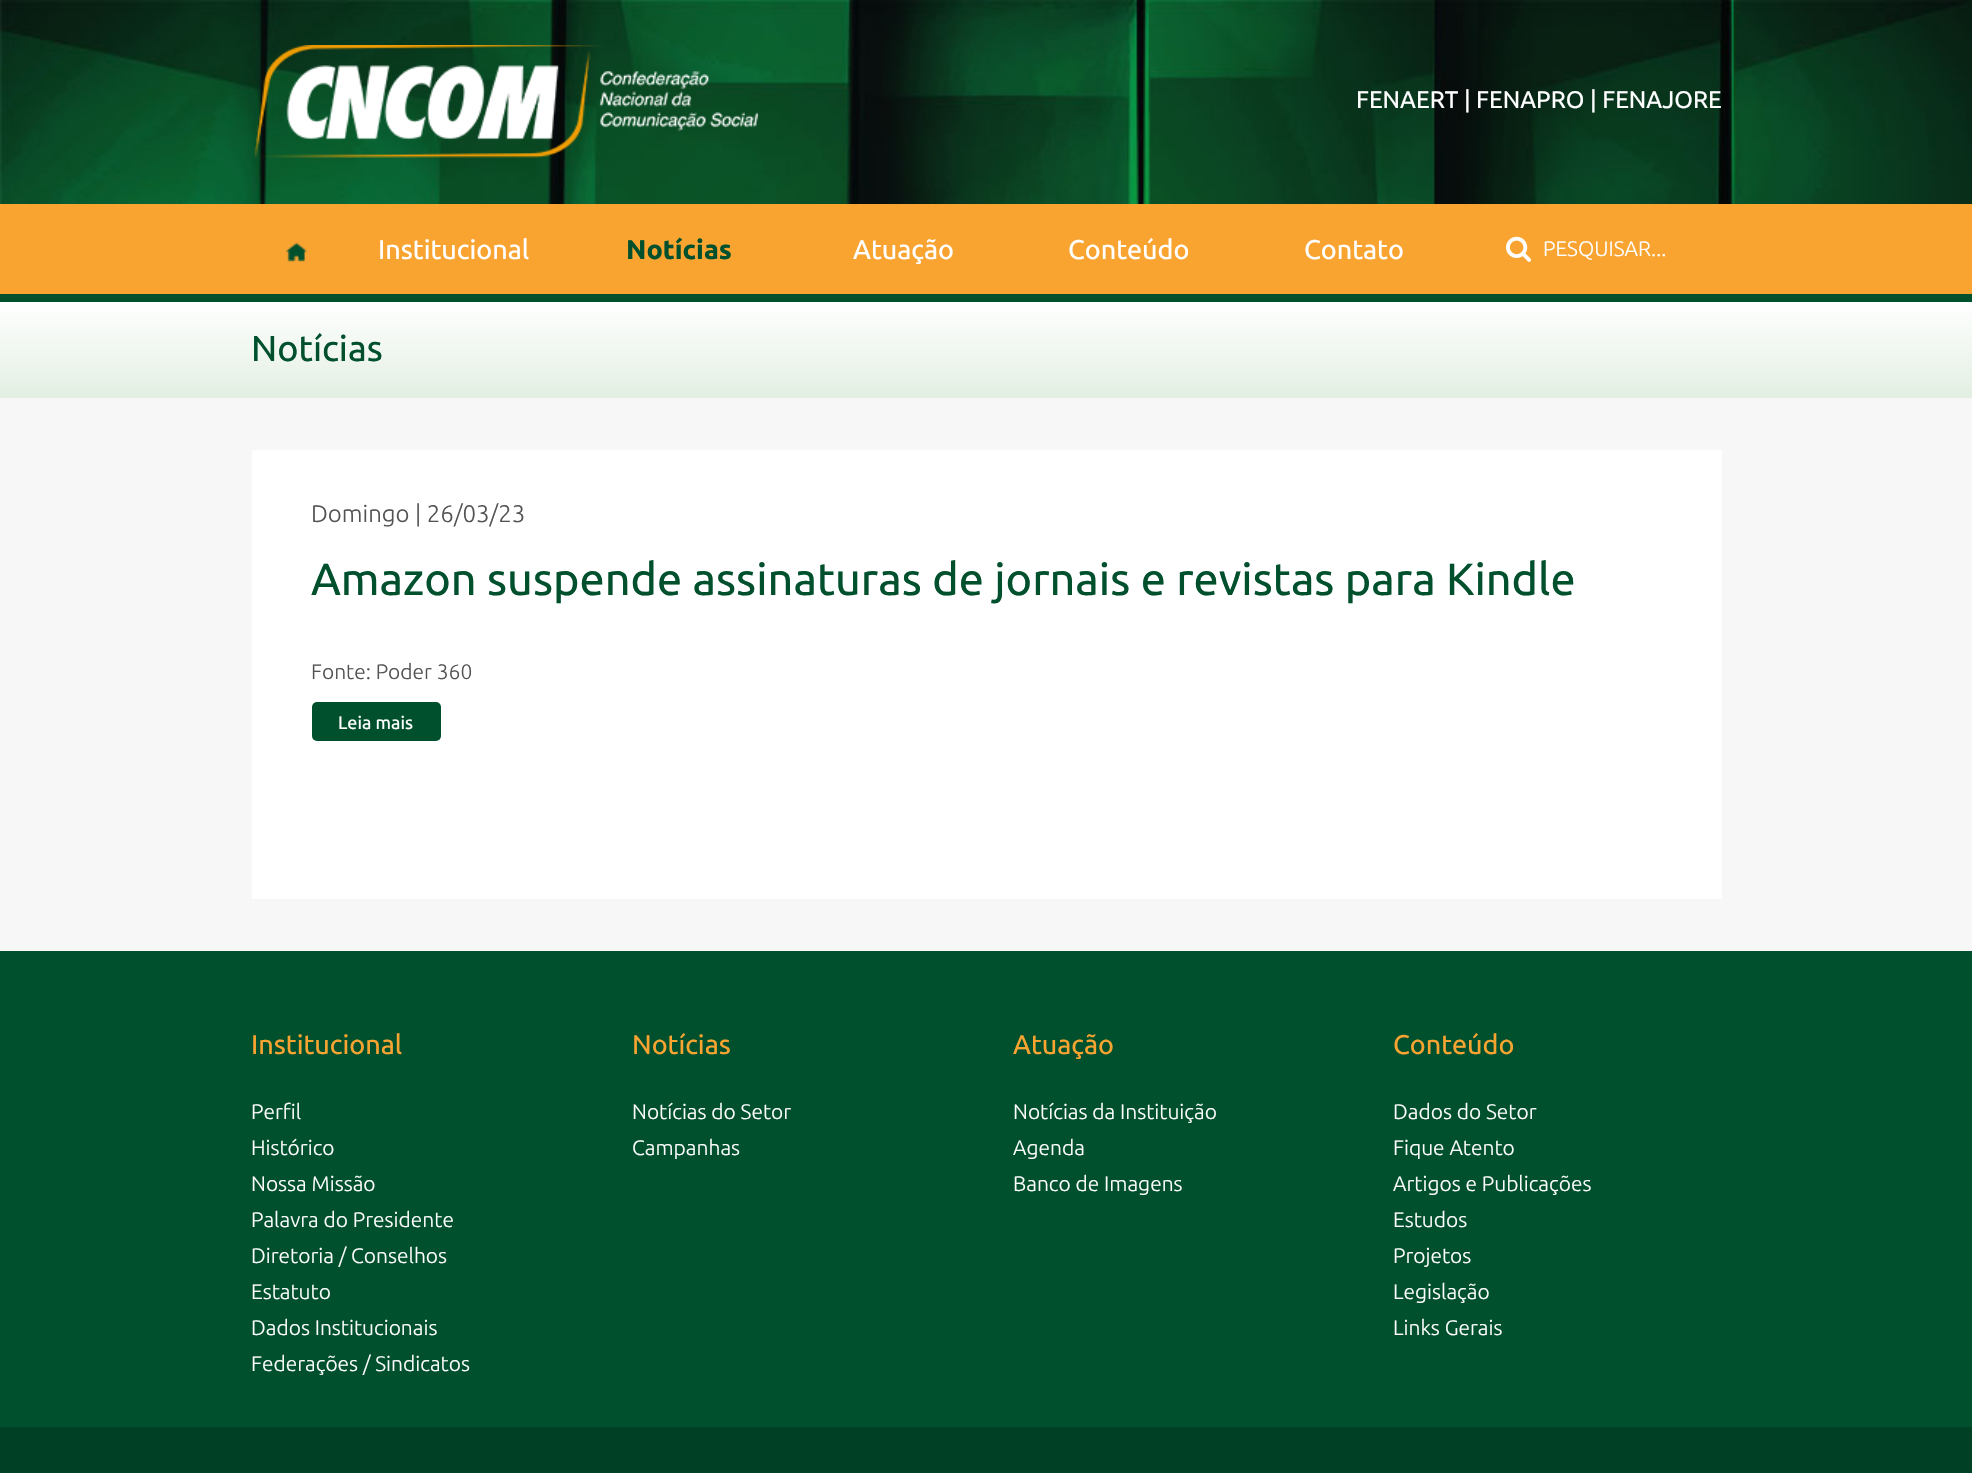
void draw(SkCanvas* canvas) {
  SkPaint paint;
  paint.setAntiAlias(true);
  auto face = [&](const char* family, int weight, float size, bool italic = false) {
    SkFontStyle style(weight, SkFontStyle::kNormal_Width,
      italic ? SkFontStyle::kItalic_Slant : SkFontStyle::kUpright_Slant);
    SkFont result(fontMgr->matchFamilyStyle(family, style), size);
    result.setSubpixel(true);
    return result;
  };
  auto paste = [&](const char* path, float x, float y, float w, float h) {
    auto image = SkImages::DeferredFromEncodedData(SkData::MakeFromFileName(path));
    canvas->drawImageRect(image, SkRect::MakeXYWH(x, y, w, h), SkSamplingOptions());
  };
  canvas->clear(0xfff7f7f7);
  paste("img/1.png", 0, 0, 1972, 204);
  paste("img/2.png", 254, 45, 505, 114);
  paint.setColor(0xfff9a431);
  canvas->drawRect(SkRect::MakeXYWH(0, 204, 1972, 90), paint);
  paint.setColor(0xff00502d);
  canvas->drawRect(SkRect::MakeXYWH(0, 294, 1972, 8), paint);
  paste("img/3.png", 286, 242, 22, 20);
  paste("img/4.png", 1506, 236, 25, 26);
  {
    const SkColor colors[] = {0xffffffff, 0xffe3efe3};
    const float stops[] = {0, 1};
    const SkPoint ends[] = {{986, 301}, {986, 398}};
    paint.setShader(SkGradientShader::MakeLinear(ends, colors, stops, 2, SkTileMode::kClamp));
    paint.setAlpha(255);
  }
  canvas->drawRect(SkRect::MakeXYWH(0, 302, 1972, 96), paint);
  paint.setShader(nullptr);
  paint.setColor(0xffffffff);
  canvas->drawRect(SkRect::MakeXYWH(252, 450, 1470, 449), paint);
  paint.setColor(0xff00502d);
  canvas->drawRoundRect(SkRect::MakeXYWH(312, 702, 129, 39), 5, 5, paint);
  canvas->drawRect(SkRect::MakeXYWH(0, 951, 1972, 476), paint);
  paint.setColor(0xff004024);
  canvas->drawRect(SkRect::MakeXYWH(0, 1427, 1972, 46), paint);
  auto f0 = face("Ubuntu", 400, 24);
  paint.setColor(0xffffffff);
  canvas->drawString("FENAERT | FENAPRO | FENAJORE", 1356, 108, f0, paint);
  auto f1 = face("Ubuntu", 400, 27);
  canvas->drawString("Institucional", 378, 259, f1, paint);
  auto f2 = face("Ubuntu", 700, 27);
  paint.setColor(0xff00502d);
  canvas->drawString("Notícias", 626, 259, f2, paint);
  paint.setColor(0xffffffff);
  {
    const struct { const char* s; float x, y; } items[] = {
      {"Atuação", 853, 259},
      {"Conteúdo", 1068, 259},
      {"Contato", 1304, 259},
    };
    for (auto [s, x, y] : items) {
      canvas->drawString(s, x, y, f1, paint);
    }
  }
  auto f3 = face("Ubuntu", 300, 21);
  canvas->drawString("PESQUISAR...", 1543, 256, f3, paint);
  auto f4 = face("Ubuntu", 400, 36);
  paint.setColor(0xff00502d);
  canvas->drawString("Notícias", 251, 361, f4, paint);
  auto f5 = face("Ubuntu", 300, 24);
  paint.setColor(0xff525252);
  canvas->drawString("Domingo | 26/03/23", 311, 522, f5, paint);
  auto f6 = face("Ubuntu", 400, 45);
  paint.setColor(0xff00502d);
  canvas->drawString("Amazon suspende assinaturas de jornais e revistas para Kindle", 311, 595, f6, paint);
  paint.setColor(0xff525252);
  canvas->drawString("Fonte: Poder 360", 311, 679, f3, paint);
  auto f7 = face("Ubuntu", 400, 18);
  paint.setColor(0xffffffff);
  canvas->drawString("Leia mais", 338, 729, f7, paint);
  paint.setColor(0xfff9a431);
  canvas->drawString("Institucional", 251, 1054, f1, paint);
  paint.setColor(0xffffffff);
  {
    const struct { const char* s; float x, y; } items[] = {
      {"Perfil", 251, 1119},
      {"Histórico", 251, 1155},
      {"Nossa Missão", 251, 1191},
      {"Palavra do Presidente", 251, 1227},
      {"Diretoria / Conselhos", 251, 1263},
      {"Estatuto", 251, 1299},
      {"Dados Institucionais", 251, 1335},
      {"Federações / Sindicatos", 251, 1371},
    };
    for (auto [s, x, y] : items) {
      canvas->drawString(s, x, y, f3, paint);
    }
  }
  paint.setColor(0xfff9a431);
  canvas->drawString("Notícias", 632, 1054, f1, paint);
  paint.setColor(0xffffffff);
  canvas->drawString("Notícias do Setor", 632, 1119, f3, paint);
  canvas->drawString("Campanhas", 632, 1155, f3, paint);
  paint.setColor(0xfff9a431);
  canvas->drawString("Atuação", 1013, 1054, f1, paint);
  paint.setColor(0xffffffff);
  {
    const struct { const char* s; float x, y; } items[] = {
      {"Notícias da Instituição", 1013, 1119},
      {"Agenda", 1013, 1155},
      {"Banco de Imagens", 1013, 1191},
    };
    for (auto [s, x, y] : items) {
      canvas->drawString(s, x, y, f3, paint);
    }
  }
  paint.setColor(0xfff9a431);
  canvas->drawString("Conteúdo", 1393, 1054, f1, paint);
  paint.setColor(0xffffffff);
  {
    const struct { const char* s; float x, y; } items[] = {
      {"Dados do Setor", 1393, 1119},
      {"Fique Atento", 1393, 1155},
      {"Artigos e Publicações", 1393, 1191},
      {"Estudos", 1393, 1227},
      {"Projetos", 1393, 1263},
      {"Legislação", 1393, 1299},
      {"Links Gerais", 1393, 1335},
    };
    for (auto [s, x, y] : items) {
      canvas->drawString(s, x, y, f3, paint);
    }
  }
}
